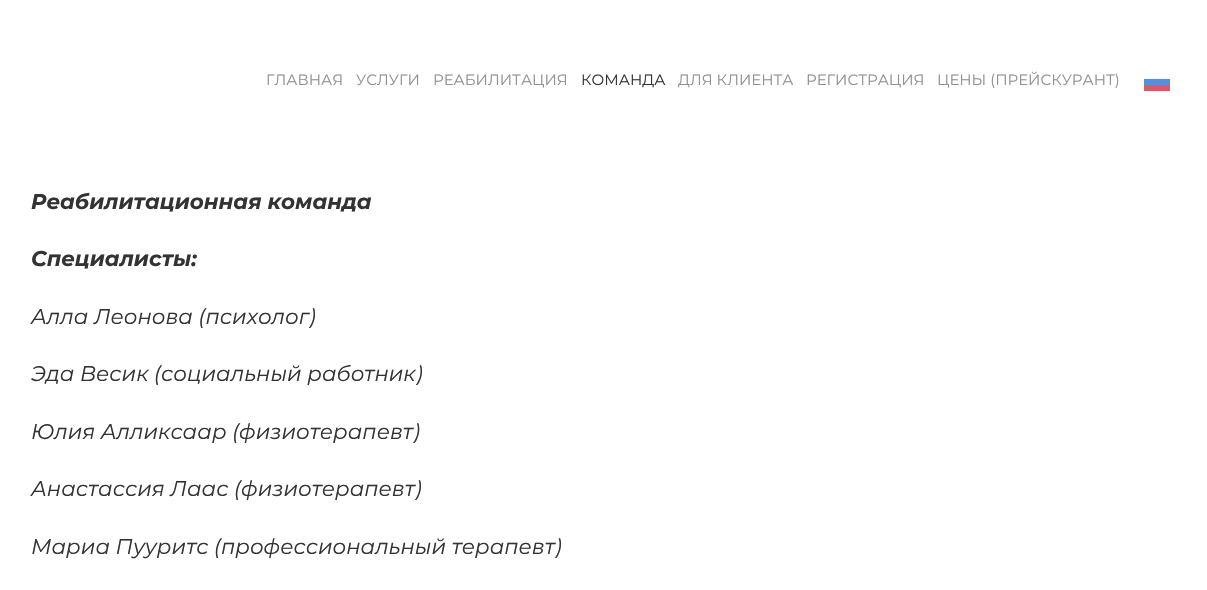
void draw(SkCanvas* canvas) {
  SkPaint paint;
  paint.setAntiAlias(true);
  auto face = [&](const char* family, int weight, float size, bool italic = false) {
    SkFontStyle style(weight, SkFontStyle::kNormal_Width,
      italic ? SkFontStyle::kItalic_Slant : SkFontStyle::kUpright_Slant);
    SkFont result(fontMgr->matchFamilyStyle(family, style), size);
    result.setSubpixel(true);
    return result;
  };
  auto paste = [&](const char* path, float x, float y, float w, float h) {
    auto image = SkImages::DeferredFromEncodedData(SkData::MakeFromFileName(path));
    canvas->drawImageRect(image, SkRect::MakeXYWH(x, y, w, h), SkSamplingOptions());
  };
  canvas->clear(0xffffffff);
  paste("img/1.png", 1144, 73, 26, 18);
  auto f0 = face("Montserrat", 400, 15);
  paint.setColor(0xff919191);
  {
    const struct { const char* s; float x, y; } items[] = {
      {"ГЛАВНАЯ", 266, 85},
      {"УСЛУГИ", 356, 85},
      {"РЕАБИЛИТАЦИЯ", 433, 85},
    };
    for (auto [s, x, y] : items) {
      canvas->drawString(s, x, y, f0, paint);
    }
  }
  paint.setColor(0xff333333);
  canvas->drawString("КОМАНДА", 581, 85, f0, paint);
  paint.setColor(0xff919191);
  {
    const struct { const char* s; float x, y; } items[] = {
      {"ДЛЯ КЛИЕНТА", 678, 85},
      {"РЕГИСТРАЦИЯ", 806, 85},
      {"ЦЕНЫ (ПРЕЙСКУРАНТ)", 937, 85},
    };
    for (auto [s, x, y] : items) {
      canvas->drawString(s, x, y, f0, paint);
    }
  }
  auto f1 = face("Montserrat", 700, 21.25f, true);
  paint.setColor(0xff333333);
  canvas->drawString("Реабилитационная команда", 31, 209, f1, paint);
  canvas->drawString("Специалисты:", 31, 266, f1, paint);
  auto f2 = face("Montserrat", 400, 21.25f, true);
  {
    const struct { const char* s; float x, y; } items[] = {
      {"Алла Леонова (психолог)", 31, 324},
      {"Эда Весик (социальный работник)", 31, 381},
      {"Юлия Алликсаар (физиотерапевт)", 31, 439},
      {"Анастассия Лаас (физиотерапевт)", 31, 496},
      {"Мариа Пууритс (профессиональный терапевт)", 31, 554},
    };
    for (auto [s, x, y] : items) {
      canvas->drawString(s, x, y, f2, paint);
    }
  }
}
